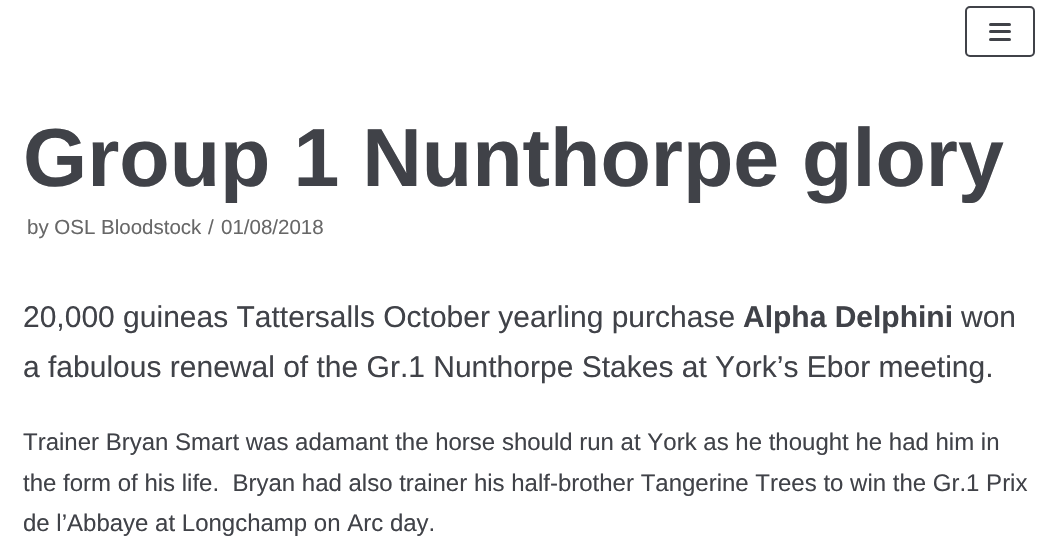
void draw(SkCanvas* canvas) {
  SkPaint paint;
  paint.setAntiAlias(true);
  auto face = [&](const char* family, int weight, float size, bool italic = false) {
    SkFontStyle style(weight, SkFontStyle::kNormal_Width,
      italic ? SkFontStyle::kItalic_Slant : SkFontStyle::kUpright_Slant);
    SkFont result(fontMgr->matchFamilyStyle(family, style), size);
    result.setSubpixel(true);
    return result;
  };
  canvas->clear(0xffffffff);
  paint.setStroke(true);
  paint.setStrokeWidth(2);
  paint.setColor(0xff404248);
  canvas->drawRoundRect(SkRect::MakeXYWH(966, 7, 68, 49), 4, 4, paint);
  paint.setStroke(false);
  canvas->drawRoundRect(SkRect::MakeXYWH(989, 23, 22, 3), 1.5f, 1.5f, paint);
  canvas->drawRoundRect(SkRect::MakeXYWH(989, 30, 22, 3), 1.5f, 1.5f, paint);
  canvas->drawRoundRect(SkRect::MakeXYWH(989, 38, 22, 3), 1.5f, 1.5f, paint);
  auto f0 = face("Liberation Sans", 700, 82.5f);
  canvas->drawString("Group 1 Nunthorpe glory", 23, 186, f0, paint);
  auto f1 = face("Liberation Sans", 400, 20.5f);
  paint.setColor(0xff676767);
  {
    const struct { const char* s; float x, y; } items[] = {
      {"by OSL Bloodstock", 27, 234},
      {"/", 208, 234},
      {"01/08/2018", 221, 234},
    };
    for (auto [s, x, y] : items) {
      canvas->drawString(s, x, y, f1, paint);
    }
  }
  auto f2 = face("Liberation Sans", 400, 30);
  paint.setColor(0xff404248);
  canvas->drawString("20,000 guineas Tattersalls October yearling purchase", 23, 327, f2, paint);
  auto f3 = face("Liberation Sans", 700, 30);
  canvas->drawString("Alpha Delphini", 743, 327, f3, paint);
  canvas->drawString("won", 961, 327, f2, paint);
  canvas->drawString("a fabulous renewal of the Gr.1 Nunthorpe Stakes at York’s Ebor meeting.", 23, 377, f2, paint);
  auto f4 = face("Liberation Sans", 400, 24);
  {
    const struct { const char* s; float x, y; } items[] = {
      {"Trainer Bryan Smart was adamant the horse should run at York as he thought he had him in", 23, 450},
      {"the form of his life.  Bryan had also trainer his half-brother Tangerine Trees to win the Gr.1 Prix", 23, 491},
      {"de l’Abbaye at Longchamp on Arc day.", 23, 531},
    };
    for (auto [s, x, y] : items) {
      canvas->drawString(s, x, y, f4, paint);
    }
  }
}
